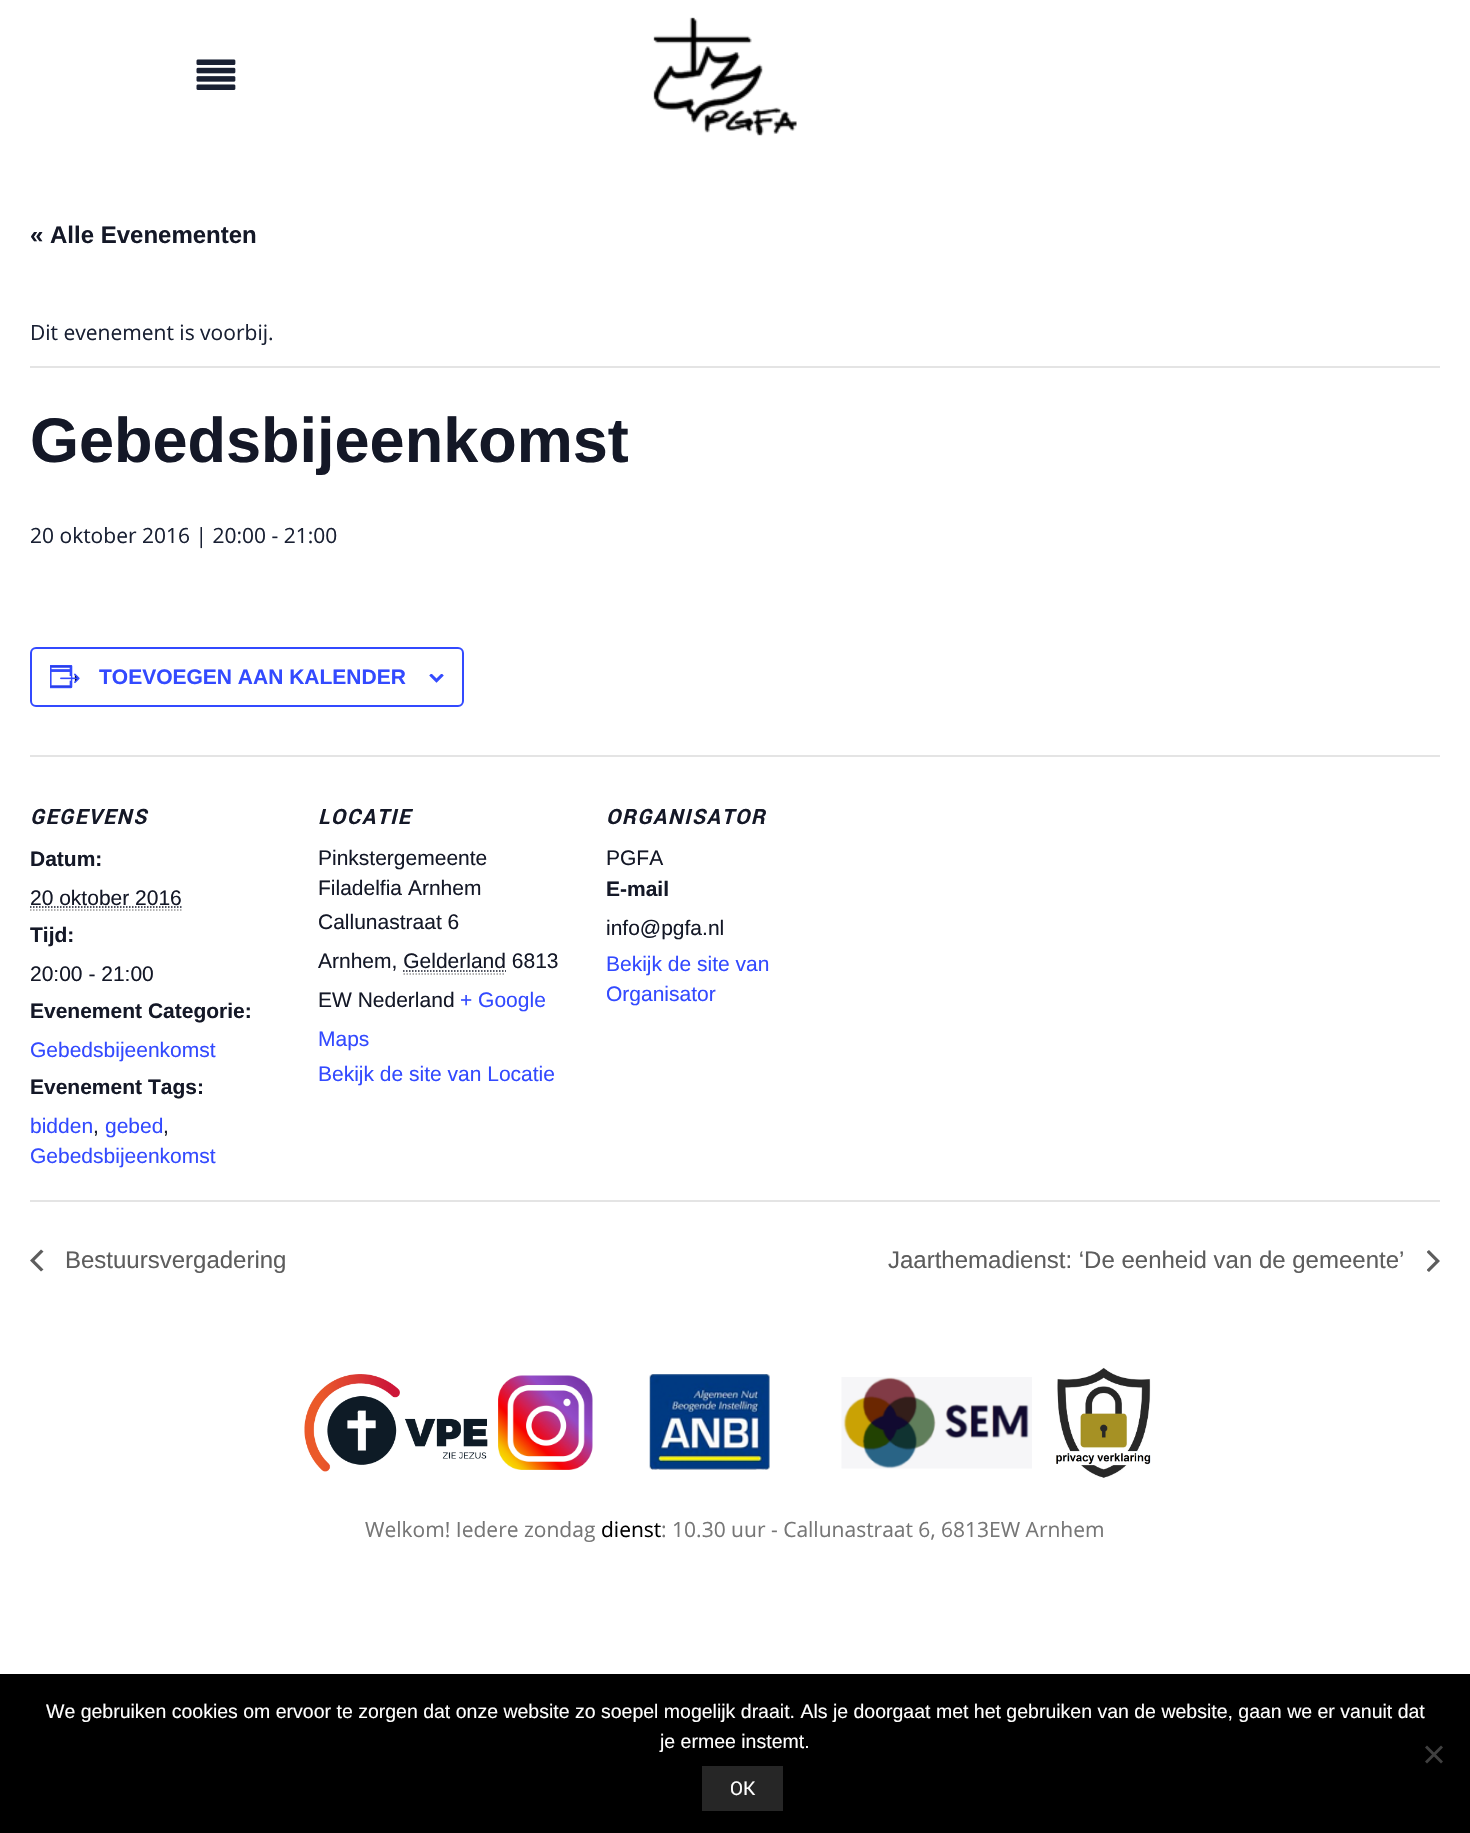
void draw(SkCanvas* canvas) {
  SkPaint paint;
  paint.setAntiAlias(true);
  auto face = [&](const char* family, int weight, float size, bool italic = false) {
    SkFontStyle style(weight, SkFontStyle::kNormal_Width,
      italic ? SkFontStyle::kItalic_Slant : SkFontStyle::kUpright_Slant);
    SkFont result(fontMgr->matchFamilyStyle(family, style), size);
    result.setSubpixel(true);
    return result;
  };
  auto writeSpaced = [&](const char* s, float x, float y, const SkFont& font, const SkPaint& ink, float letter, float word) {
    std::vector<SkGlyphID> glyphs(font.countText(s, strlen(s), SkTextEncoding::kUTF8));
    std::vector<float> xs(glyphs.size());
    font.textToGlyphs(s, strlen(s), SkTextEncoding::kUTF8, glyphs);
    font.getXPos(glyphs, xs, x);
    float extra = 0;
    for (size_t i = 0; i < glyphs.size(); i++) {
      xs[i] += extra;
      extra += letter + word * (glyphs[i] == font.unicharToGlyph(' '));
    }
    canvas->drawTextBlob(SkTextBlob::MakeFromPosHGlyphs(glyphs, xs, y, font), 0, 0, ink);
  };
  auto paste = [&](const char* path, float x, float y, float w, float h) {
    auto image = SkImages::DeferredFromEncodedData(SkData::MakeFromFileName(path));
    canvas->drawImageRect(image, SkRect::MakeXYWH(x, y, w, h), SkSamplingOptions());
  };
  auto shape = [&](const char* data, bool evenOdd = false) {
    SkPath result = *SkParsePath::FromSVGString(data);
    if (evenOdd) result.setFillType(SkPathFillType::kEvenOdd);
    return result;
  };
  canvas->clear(0xffffffff);
  paste("img/1.png", 196, 59, 40, 31);
  paste("img/2.png", 653, 17, 144, 119);
  paint.setColor(0xffe4e4e4);
  canvas->drawRect(SkRect::MakeXYWH(30, 366, 1410, 2), paint);
  paint.setStroke(true);
  paint.setStrokeWidth(2);
  paint.setColor(0xff334aff);
  canvas->drawRoundRect(SkRect::MakeXYWH(31, 648, 432, 58), 5, 5, paint);
  paste("img/3.png", 50, 665, 30, 24);
  paste("img/4.png", 429, 674, 15, 9);
  paint.setStroke(false);
  paint.setColor(0xffe4e4e4);
  canvas->drawRect(SkRect::MakeXYWH(30, 755, 1410, 2), paint);
  paint.setStroke(true);
  paint.setStrokeWidth(1.5f);
  paint.setColor(0xff999999);
  paint.setPathEffect(SkDashPathEffect::Make({{1.5f, 1.5f}}, 0));
  canvas->drawPath(shape("M30 910H181.5"), paint);
  paint.setPathEffect(nullptr);
  paint.setColor(0xff141827);
  paint.setPathEffect(SkDashPathEffect::Make({{1.5f, 1.5f}}, 0));
  canvas->drawPath(shape("M30 907H182"), paint);
  paint.setPathEffect(nullptr);
  paint.setColor(0xff999999);
  paint.setPathEffect(SkDashPathEffect::Make({{1.5f, 1.5f}}, 0));
  canvas->drawPath(shape("M403.5 974H505.5"), paint);
  paint.setPathEffect(nullptr);
  paint.setColor(0xff141827);
  paint.setPathEffect(SkDashPathEffect::Make({{1.5f, 1.5f}}, 0));
  canvas->drawPath(shape("M403 971H506"), paint);
  paint.setPathEffect(nullptr);
  paint.setStroke(false);
  paint.setColor(0xffe4e4e4);
  canvas->drawRect(SkRect::MakeXYWH(30, 1200, 1410, 2), paint);
  paint.setColor(0xff5d5d5d);
  canvas->drawPath(shape("M43.5 1269.5L41 1271.5L30 1260.5L41 1249.5L43.5 1251.5L34.5 1260.5Z"), paint);
  canvas->save();
  canvas->clipRect(SkRect::MakeXYWH(1427, 1250, 13, 22));
  canvas->drawPath(shape("M1426.5 1252L1429 1250L1440 1261L1429 1272L1426.5 1270L1435.5 1261Z"), paint);
  canvas->restore();
  paste("img/5.png", 304, 1374, 184, 98);
  paste("img/6.png", 498, 1375, 95, 95);
  paste("img/7.png", 649, 1374, 121, 96);
  paste("img/8.png", 841, 1377, 191, 92);
  paste("img/9.png", 1056, 1367, 95, 111);
  paint.setColor(0xff000000);
  canvas->drawRect(SkRect::MakeXYWH(0, 1674, 1470, 159), paint);
  paint.setColor(0xff404040);
  canvas->drawPath(shape("M1441 1745.5L1443 1747.5L1427 1763.5L1425 1761.5Z"), paint);
  canvas->drawPath(shape("M1425 1747.5L1427 1745.5L1443 1761.5L1441 1763.5Z"), paint);
  paint.setColor(0xff262626);
  canvas->drawRect(SkRect::MakeXYWH(702, 1766, 81, 45), paint);
  auto f0 = face("Liberation Sans", 700, 24);
  paint.setColor(0xff141827);
  canvas->drawString("« Alle Evenementen", 30, 243, f0, paint);
  auto f1 = face("Open Sans", 400, 21);
  paint.setColor(0xff192033);
  canvas->drawString("Dit evenement is voorbij.", 30, 340, f1, paint);
  auto f2 = face("Liberation Sans", 700, 63);
  paint.setColor(0xff141827);
  canvas->drawString("Gebedsbijeenkomst", 30, 462, f2, paint);
  paint.setColor(0xff192033);
  canvas->drawString("20 oktober 2016 | 20:00 - 21:00", 30, 543, f1, paint);
  auto f3 = face("Liberation Sans", 700, 21);
  paint.setColor(0xff334aff);
  canvas->drawString("TOEVOEGEN AAN KALENDER", 99, 684, f3, paint);
  auto f4 = face("Roboto", 700, 21, true);
  paint.setColor(0xff141827);
  writeSpaced("GEGEVENS", 30, 824, f4, paint, 1.5f, 0);
  canvas->drawString("Datum:", 30, 866, f3, paint);
  auto f5 = face("Liberation Sans", 400, 21);
  canvas->drawString("20 oktober 2016", 30, 905, f5, paint);
  canvas->drawString("Tijd:", 30, 942, f3, paint);
  canvas->drawString("20:00 - 21:00", 30, 981, f5, paint);
  canvas->drawString("Evenement Categorie:", 30, 1018, f3, paint);
  paint.setColor(0xff334aff);
  canvas->drawString("Gebedsbijeenkomst", 30, 1057, f5, paint);
  paint.setColor(0xff141827);
  canvas->drawString("Evenement Tags:", 30, 1094, f3, paint);
  paint.setColor(0xff334aff);
  canvas->drawString("bidden", 30, 1133, f5, paint);
  paint.setColor(0xff141827);
  canvas->drawString(",", 93, 1133, f5, paint);
  paint.setColor(0xff334aff);
  canvas->drawString("gebed", 105, 1133, f5, paint);
  paint.setColor(0xff141827);
  canvas->drawString(",", 163, 1133, f5, paint);
  paint.setColor(0xff334aff);
  canvas->drawString("Gebedsbijeenkomst", 30, 1163, f5, paint);
  paint.setColor(0xff141827);
  writeSpaced("LOCATIE", 318, 824, f4, paint, 1.5f, 0);
  {
    const struct { const char* s; float x, y; } items[] = {
      {"Pinkstergemeente", 318, 865},
      {"Filadelfia Arnhem", 318, 895},
      {"Callunastraat 6", 318, 929},
      {"Arnhem, Gelderland 6813", 318, 968},
      {"EW Nederland", 318, 1007},
    };
    for (auto [s, x, y] : items) {
      canvas->drawString(s, x, y, f5, paint);
    }
  }
  paint.setColor(0xff334aff);
  {
    const struct { const char* s; float x, y; } items[] = {
      {"+ Google", 460, 1007},
      {"Maps", 318, 1046},
      {"Bekijk de site van Locatie", 318, 1081},
    };
    for (auto [s, x, y] : items) {
      canvas->drawString(s, x, y, f5, paint);
    }
  }
  paint.setColor(0xff141827);
  writeSpaced("ORGANISATOR", 606, 824, f4, paint, 1.5f, 0);
  canvas->drawString("PGFA", 606, 865, f5, paint);
  canvas->drawString("E-mail", 606, 896, f3, paint);
  canvas->drawString("info@pgfa.nl", 606, 935, f5, paint);
  paint.setColor(0xff334aff);
  canvas->drawString("Bekijk de site van", 606, 971, f5, paint);
  canvas->drawString("Organisator", 606, 1001, f5, paint);
  auto f6 = face("Liberation Sans", 400, 24);
  paint.setColor(0xff5d5d5d);
  canvas->drawString("Bestuursvergadering", 65, 1268, f6, paint);
  canvas->drawString("Jaarthemadienst: ‘De eenheid van de gemeente’", 888, 1268, f6, paint);
  paint.setColor(0xff767676);
  canvas->drawString("Welkom! Iedere zondag", 365, 1537, f1, paint);
  paint.setColor(0xff000000);
  canvas->drawString("dienst", 601, 1537, f1, paint);
  paint.setColor(0xff767676);
  canvas->drawString(": 10.30 uur - Callunastraat 6, 6813EW Arnhem", 661, 1537, f1, paint);
  auto f7 = face("Liberation Sans", 400, 19.5f);
  paint.setColor(0xffffffff);
  canvas->drawString("We gebruiken cookies om ervoor te zorgen dat onze website zo soepel mogelijk draait. Als je doorgaat met het gebruiken van de website, gaan we er vanuit dat", 46, 1718, f7, paint);
  canvas->drawString("je ermee instemt.", 660, 1748, f7, paint);
  auto f8 = face("Roboto", 400, 19);
  canvas->drawString("OK", 730, 1795, f8, paint);
}
